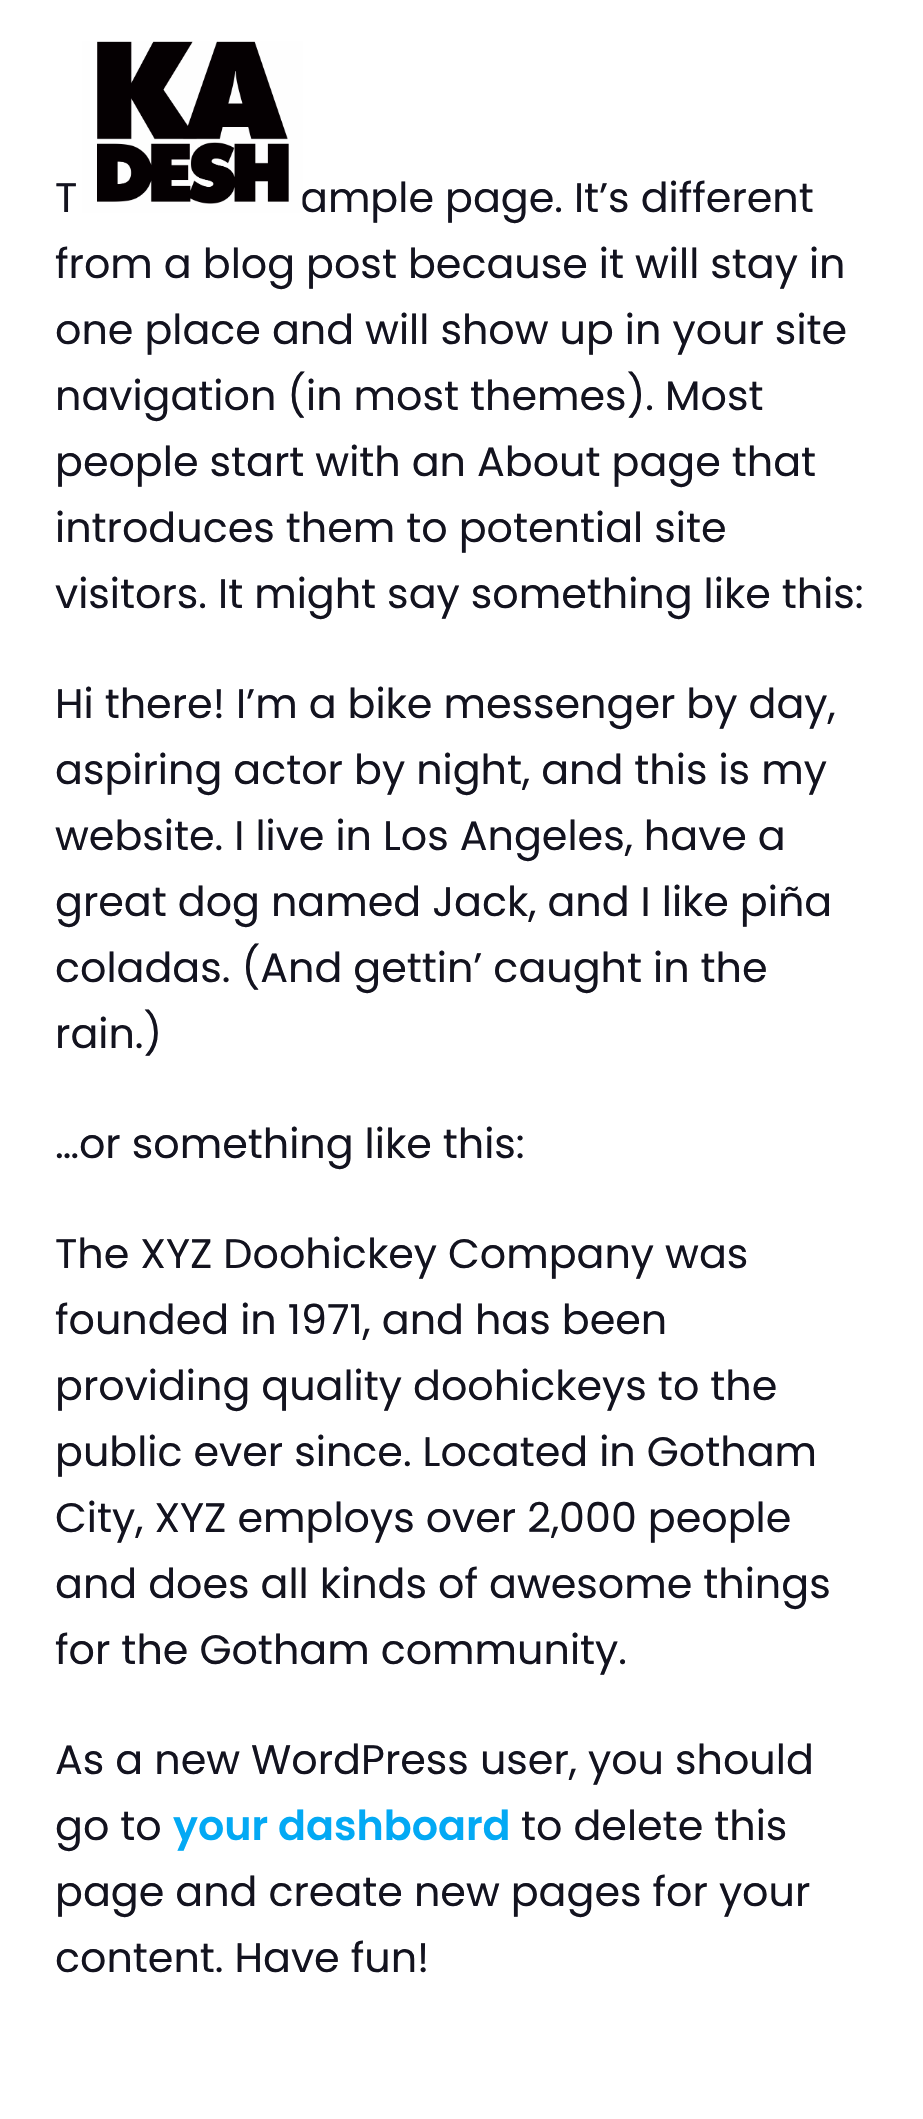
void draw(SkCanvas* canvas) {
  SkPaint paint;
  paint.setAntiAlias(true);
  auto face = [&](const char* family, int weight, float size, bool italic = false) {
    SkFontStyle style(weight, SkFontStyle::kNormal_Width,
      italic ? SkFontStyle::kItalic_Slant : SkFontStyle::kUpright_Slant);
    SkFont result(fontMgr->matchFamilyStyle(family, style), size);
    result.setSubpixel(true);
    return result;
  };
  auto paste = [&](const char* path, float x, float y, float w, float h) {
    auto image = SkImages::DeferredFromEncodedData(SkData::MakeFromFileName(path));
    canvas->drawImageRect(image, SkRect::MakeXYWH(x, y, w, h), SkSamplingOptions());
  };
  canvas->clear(0xffffffff);
  auto f0 = face("Poppins", 400, 41.25f);
  paint.setColor(0xff13131f);
  canvas->drawString("T", 55, 212, f0, paint);
  canvas->drawString("ample page. It’s different", 300, 212, f0, paint);
  paste("img/1.png", 82, 41, 221, 172);
  {
    const struct { const char* s; float x, y; } items[] = {
      {"from a blog post because it will stay in", 55, 278},
      {"one place and will show up in your site", 55, 344},
      {"navigation (in most themes). Most", 55, 410},
      {"people start with an About page that", 55, 476},
      {"introduces them to potential site", 55, 542},
      {"visitors. It might say something like this:", 55, 608},
      {"Hi there! I’m a bike messenger by day,", 55, 718},
      {"aspiring actor by night, and this is my", 55, 784},
      {"website. I live in Los Angeles, have a", 55, 850},
      {"great dog named Jack, and I like piña", 55, 916},
      {"coladas. (And gettin’ caught in the", 55, 982},
      {"rain.)", 55, 1048},
      {"…or something like this:", 55, 1158},
      {"The XYZ Doohickey Company was", 55, 1268},
      {"founded in 1971, and has been", 55, 1334},
      {"providing quality doohickeys to the", 55, 1400},
      {"public ever since. Located in Gotham", 55, 1466},
      {"City, XYZ employs over 2,000 people", 55, 1532},
      {"and does all kinds of awesome things", 55, 1598},
      {"for the Gotham community.", 55, 1664},
      {"As a new WordPress user, you should", 55, 1774},
      {"go to", 55, 1840},
    };
    for (auto [s, x, y] : items) {
      canvas->drawString(s, x, y, f0, paint);
    }
  }
  auto f1 = face("Poppins", 600, 41.25f);
  paint.setColor(0xff03a9f4);
  canvas->drawString("your dashboard", 173, 1840, f1, paint);
  paint.setColor(0xff13131f);
  {
    const struct { const char* s; float x, y; } items[] = {
      {"to delete this", 521, 1840},
      {"page and create new pages for your", 55, 1906},
      {"content. Have fun!", 55, 1972},
    };
    for (auto [s, x, y] : items) {
      canvas->drawString(s, x, y, f0, paint);
    }
  }
}
